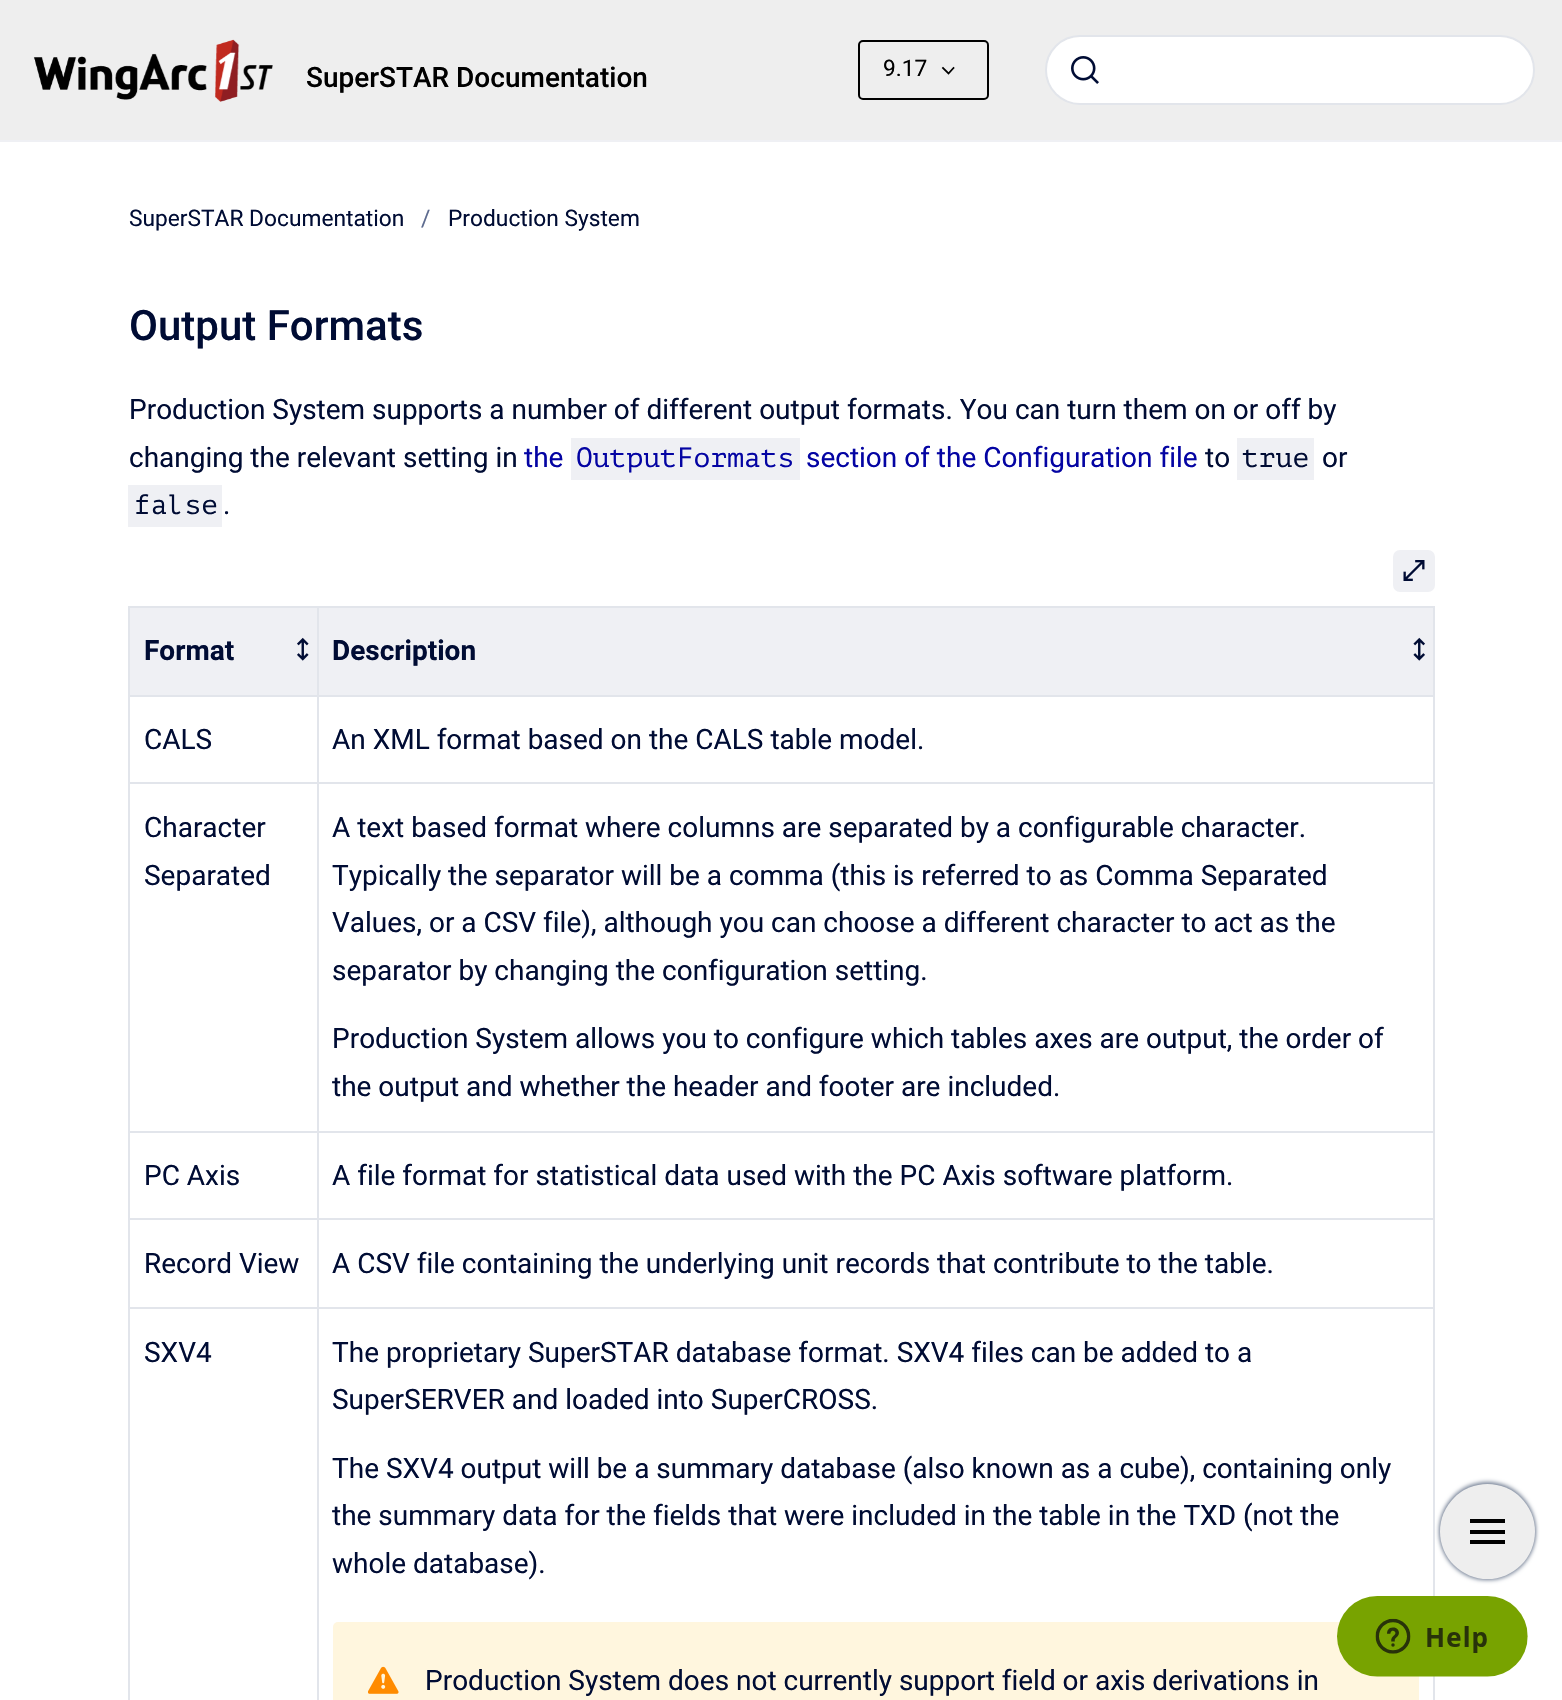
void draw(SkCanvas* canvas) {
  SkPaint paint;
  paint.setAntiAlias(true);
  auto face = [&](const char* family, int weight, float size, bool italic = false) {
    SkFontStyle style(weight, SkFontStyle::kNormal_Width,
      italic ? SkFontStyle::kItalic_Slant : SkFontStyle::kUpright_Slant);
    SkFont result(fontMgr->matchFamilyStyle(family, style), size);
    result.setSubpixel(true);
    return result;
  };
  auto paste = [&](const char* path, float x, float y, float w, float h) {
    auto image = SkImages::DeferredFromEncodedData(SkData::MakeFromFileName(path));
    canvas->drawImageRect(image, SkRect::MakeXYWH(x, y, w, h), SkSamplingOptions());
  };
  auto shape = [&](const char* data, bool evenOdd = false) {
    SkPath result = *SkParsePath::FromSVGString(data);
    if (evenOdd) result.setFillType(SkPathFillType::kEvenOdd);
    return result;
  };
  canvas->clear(0xffffffff);
  paint.setColor(0xffeeeeee);
  canvas->drawRect(SkRect::MakeXYWH(0, 0, 1562, 140), paint);
  paint.setColor(0xffeff0f4);
  canvas->drawRect(SkRect::MakeXYWH(0, 140, 1562, 2), paint);
  paste("img/1.png", 33, 39, 240, 63);
  paint.setStroke(true);
  paint.setStrokeWidth(2);
  paint.setColor(0xff000000);
  canvas->drawRoundRect(SkRect::MakeXYWH(859, 41, 129, 58), 4, 4, paint);
  paint.setStrokeWidth(1.8f);
  paint.setStrokeCap(SkPaint::kSquare_Cap);
  canvas->drawPath(shape("M953.5 68L948.5 73.5L943 68"), paint);
  paint.setStrokeWidth(2);
  paint.setStrokeCap(SkPaint::kButt_Cap);
  paint.setColor(0xffe2e5eb);
  canvas->drawRoundRect(SkRect::MakeXYWH(1046, 36, 488, 68), 34, 34, paint);
  paint.setStroke(false);
  paint.setColor(0xffffffff);
  canvas->drawRoundRect(SkRect::MakeXYWH(1047, 37, 486, 66), 33, 33, paint);
  paste("img/2.png", 1071, 56, 28, 28);
  {
    const struct { float x, y, w, h; SkColor color; } items[] = {
      {571, 438, 229, 42, 0xffeff0f4},
      {1237, 438, 77, 42, 0xffeff0f4},
      {128, 485, 94, 42, 0xffeff0f4},
    };
    for (auto [x, y, w, h, color] : items) {
      paint.setColor(color);
      canvas->drawRect(SkRect::MakeXYWH(x, y, w, h), paint);
    }
  }
  canvas->drawRoundRect(SkRect::MakeXYWH(1394, 551, 40, 40), 6, 6, paint);
  paint.setStroke(true);
  canvas->drawRoundRect(SkRect::MakeXYWH(1394, 551, 40, 40), 6, 6, paint);
  paste("img/3.png", 1403, 560, 22, 21);
  paint.setStroke(false);
  {
    const struct { float x, y, w, h; SkColor color; } items[] = {
      {128, 606, 1307, 2, 0xffe2e5eb},
      {1433, 606, 2, 1094, 0xffe2e5eb},
      {128, 606, 2, 1094, 0xffe2e5eb},
      {130, 608, 187, 87, 0xffeff0f4},
    };
    for (auto [x, y, w, h, color] : items) {
      paint.setColor(color);
      canvas->drawRect(SkRect::MakeXYWH(x, y, w, h), paint);
    }
  }
  paste("img/4.png", 297, 637, 12, 24);
  canvas->drawRect(SkRect::MakeXYWH(319, 608, 1114, 87), paint);
  paste("img/5.png", 1413, 637, 12, 24);
  {
    const struct { float x, y, w, h; SkColor color; } items[] = {
      {317, 695, 1118, 2, 0xffe2e5eb},
      {317, 782, 1118, 2, 0xffe2e5eb},
      {317, 1131, 1118, 2, 0xffe2e5eb},
      {317, 1218, 1118, 2, 0xffe2e5eb},
      {317, 1307, 1118, 2, 0xffe2e5eb},
      {317, 1307, 2, 393, 0xffe2e5eb},
      {128, 1307, 191, 2, 0xffe2e5eb},
      {317, 1218, 2, 91, 0xffe2e5eb},
      {128, 1218, 191, 2, 0xffe2e5eb},
      {317, 1131, 2, 89, 0xffe2e5eb},
      {128, 1131, 191, 2, 0xffe2e5eb},
      {317, 782, 2, 350, 0xffe2e5eb},
      {128, 782, 191, 2, 0xffe2e5eb},
      {317, 695, 2, 89, 0xffe2e5eb},
      {128, 695, 191, 2, 0xffe2e5eb},
      {317, 606, 2, 91, 0xffe2e5eb},
    };
    for (auto [x, y, w, h, color] : items) {
      paint.setColor(color);
      canvas->drawRect(SkRect::MakeXYWH(x, y, w, h), paint);
    }
  }
  paint.setColor(0xfffff6de);
  canvas->drawRoundRect(SkRect::MakeXYWH(333, 1622, 1086, 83), 5, 5, paint);
  paste("img/6.png", 368, 1666, 31, 28);
  paint.setColor(0xff7a869a);
  paint.setMaskFilter(SkMaskFilter::MakeBlur(kNormal_SkBlurStyle, 2));
  canvas->drawRoundRect(SkRect::MakeXYWH(1440, 1482, 95, 95), 47.5f, 47.5f, paint);
  paint.setMaskFilter(nullptr);
  paint.setMaskFilter(SkMaskFilter::MakeBlur(kNormal_SkBlurStyle, 2));
  canvas->drawRoundRect(SkRect::MakeXYWH(1440, 1486, 95, 94), 47, 47, paint);
  paint.setMaskFilter(nullptr);
  paint.setColor(0xffeeeeee);
  canvas->drawCircle(1487.5f, 1531.5f, 47.5f, paint);
  {
    const struct { float x, y, w, h; SkColor color; } items[] = {
      {1470, 1519, 35, 4, 0xff000000},
      {1470, 1530, 35, 4, 0xff000000},
      {1470, 1540, 35, 4, 0xff000000},
    };
    for (auto [x, y, w, h, color] : items) {
      paint.setColor(color);
      canvas->drawRect(SkRect::MakeXYWH(x, y, w, h), paint);
    }
  }
  paste("img/7.png", 1337, 1596, 191, 81);
  auto f0 = face("Roboto", 500, 28);
  canvas->drawString("SuperSTAR Documentation", 306, 87, f0, paint);
  auto f1 = face("Roboto", 400, 22.75f);
  canvas->drawString("9.17", 883, 76, f1, paint);
  paint.setColor(0xff000c34);
  canvas->drawString("SuperSTAR Documentation", 129, 226, f1, paint);
  paint.setColor(0xff5d6b8f);
  canvas->drawString("/", 421, 226, f1, paint);
  paint.setColor(0xff000c34);
  canvas->drawString("Production System", 448, 226, f1, paint);
  auto f2 = face("Roboto", 500, 42);
  canvas->drawString("Output Formats", 129, 340, f2, paint);
  auto f3 = face("Roboto", 400, 28);
  canvas->drawString("Production System supports a number of different output formats. You can turn them on or off by", 129, 419, f3, paint);
  canvas->drawString("changing the relevant setting in", 129, 467, f3, paint);
  paint.setColor(0xff0404a3);
  canvas->drawString("the", 524, 467, f3, paint);
  auto f4 = face("PT Mono", 400, 28);
  canvas->drawString("OutputFormats", 576, 467, f4, paint);
  canvas->drawString("section of the Configuration file", 806, 467, f3, paint);
  paint.setColor(0xff000c34);
  canvas->drawString("to", 1205, 467, f3, paint);
  canvas->drawString("true", 1242, 467, f4, paint);
  canvas->drawString("or", 1322, 467, f3, paint);
  canvas->drawString("false", 134, 514, f4, paint);
  canvas->drawString(".", 223, 514, f3, paint);
  auto f5 = face("Roboto", 700, 28);
  canvas->drawString("Format", 144, 660, f5, paint);
  canvas->drawString("Description", 332, 660, f5, paint);
  {
    const struct { const char* s; float x, y; } items[] = {
      {"CALS", 144, 749},
      {"An XML format based on the CALS table model.", 332, 749},
      {"Character", 144, 837},
      {"Separated", 144, 885},
      {"A text based format where columns are separated by a configurable character.", 332, 837},
      {"Typically the separator will be a comma (this is referred to as Comma Separated", 332, 885},
      {"Values, or a CSV file), although you can choose a different character to act as the", 332, 932},
      {"separator by changing the configuration setting.", 332, 980},
      {"Production System allows you to configure which tables axes are output, the order of", 332, 1048},
      {"the output and whether the header and footer are included.", 332, 1096},
      {"PC Axis", 144, 1185},
      {"A file format for statistical data used with the PC Axis software platform.", 332, 1185},
      {"Record View", 144, 1273},
      {"A CSV file containing the underlying unit records that contribute to the table.", 332, 1273},
      {"SXV4", 144, 1362},
      {"The proprietary SuperSTAR database format. SXV4 files can be added to a", 332, 1362},
      {"SuperSERVER and loaded into SuperCROSS.", 332, 1409},
      {"The SXV4 output will be a summary database (also known as a cube), containing only", 332, 1478},
      {"the summary data for the fields that were included in the table in the TXD (not the", 332, 1525},
      {"whole database).", 332, 1573},
      {"Production System does not currently support field or axis derivations in", 425, 1690},
    };
    for (auto [s, x, y] : items) {
      canvas->drawString(s, x, y, f3, paint);
    }
  }
}
